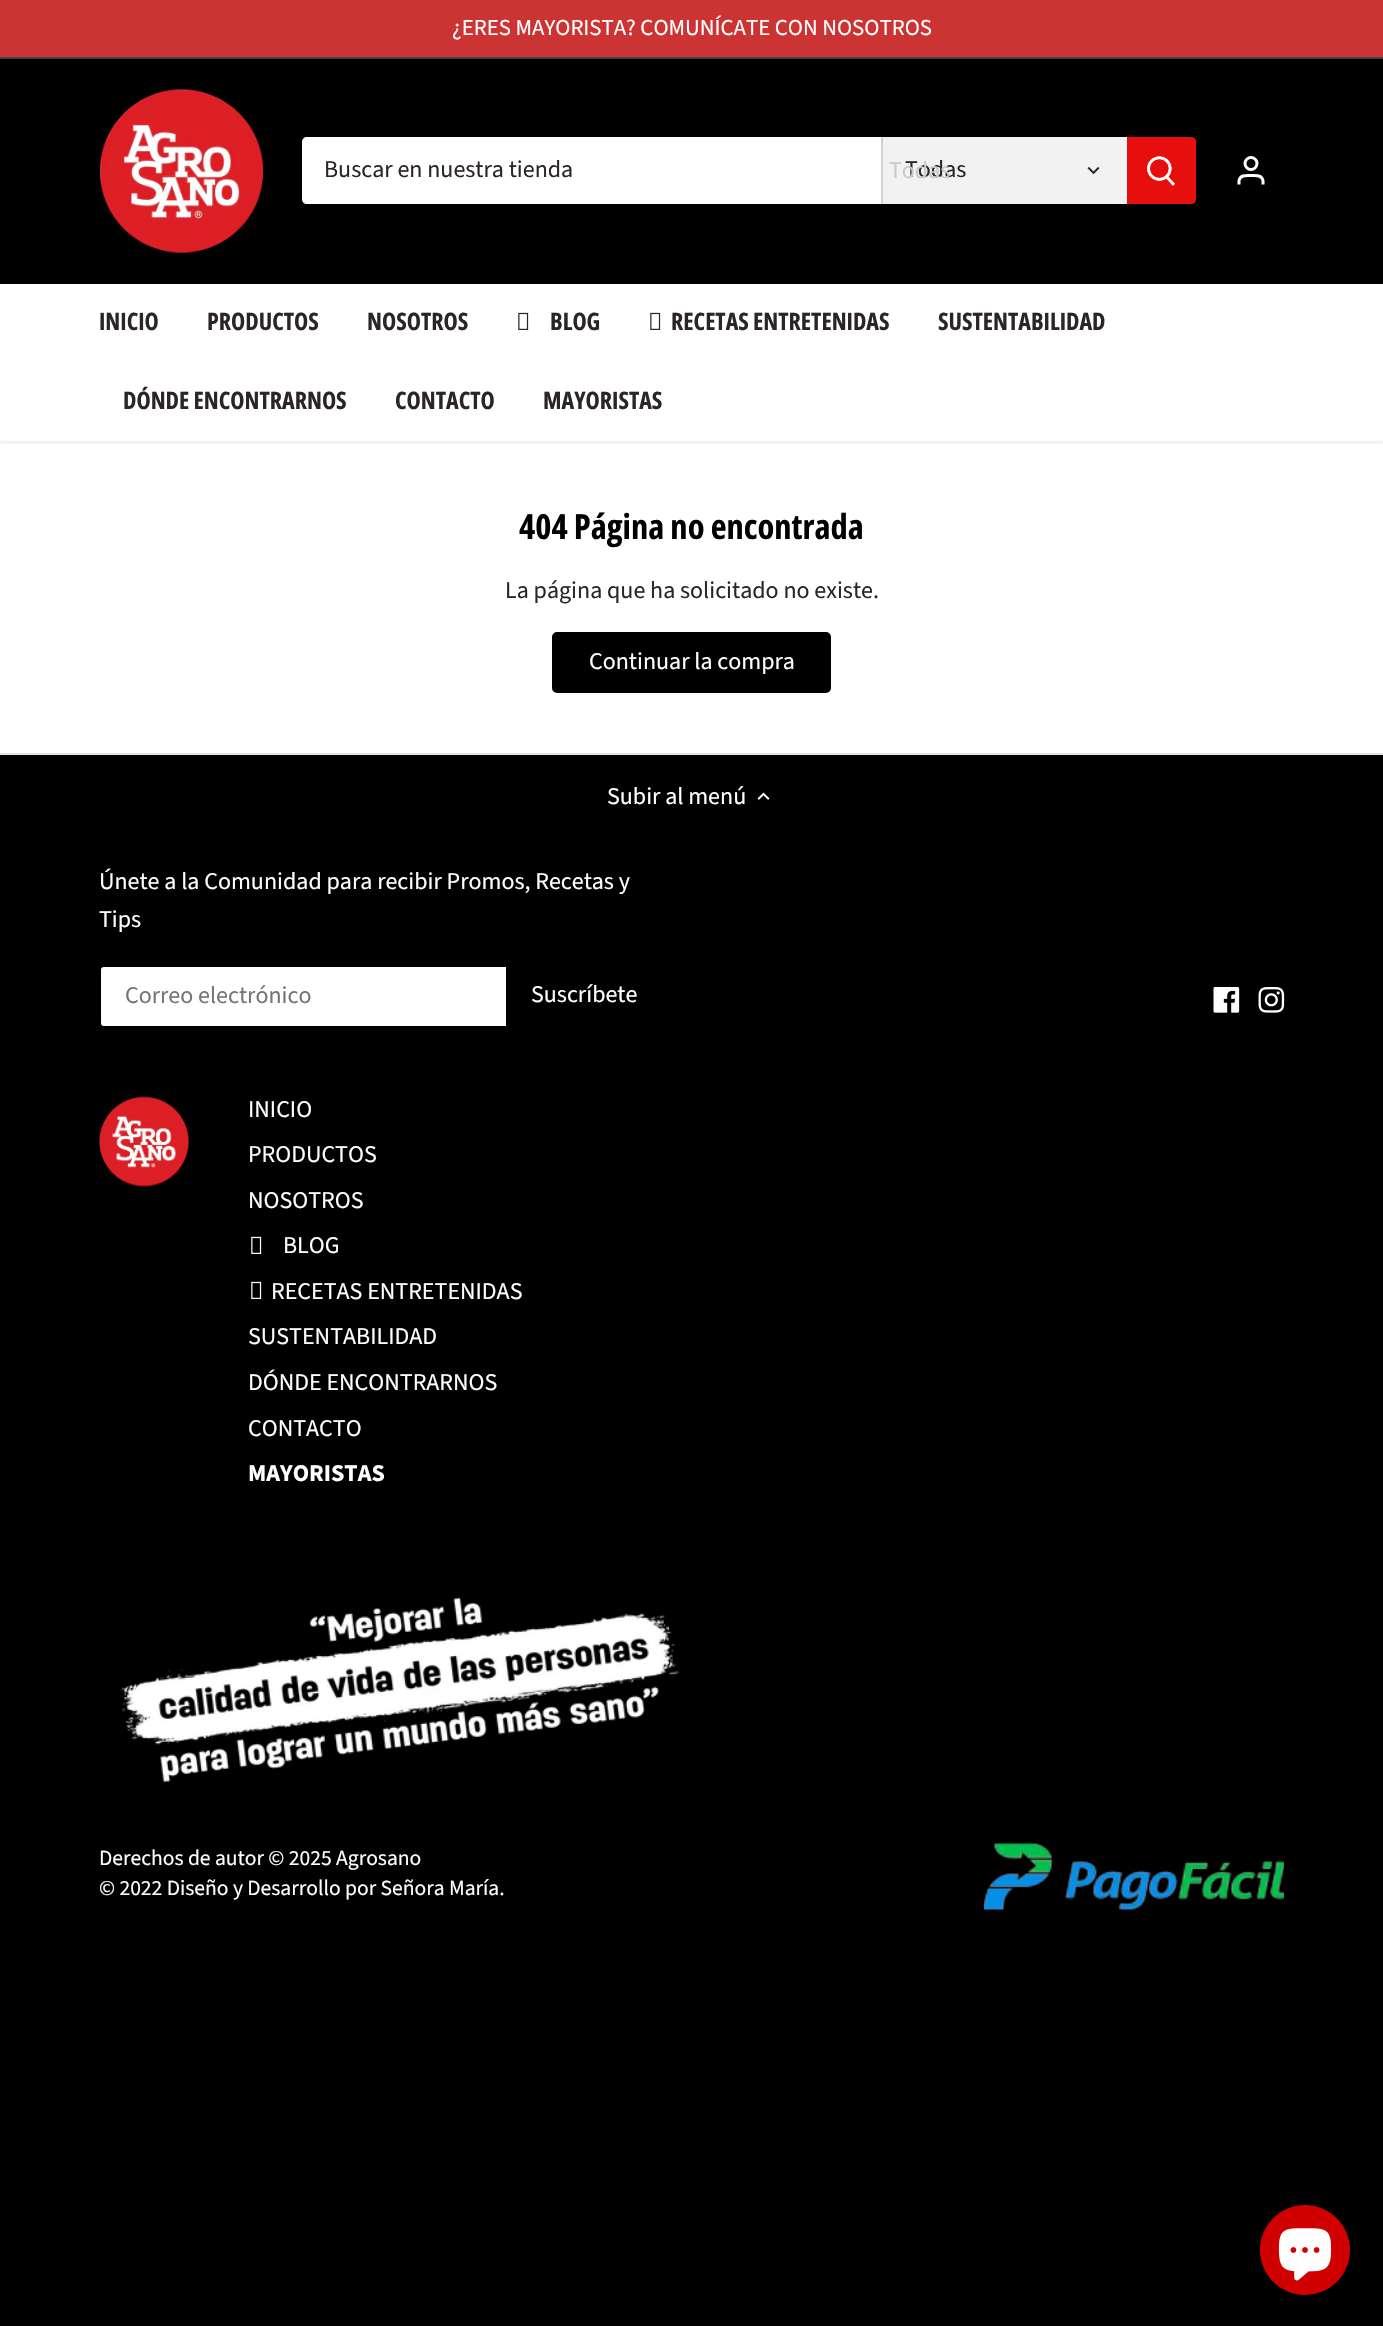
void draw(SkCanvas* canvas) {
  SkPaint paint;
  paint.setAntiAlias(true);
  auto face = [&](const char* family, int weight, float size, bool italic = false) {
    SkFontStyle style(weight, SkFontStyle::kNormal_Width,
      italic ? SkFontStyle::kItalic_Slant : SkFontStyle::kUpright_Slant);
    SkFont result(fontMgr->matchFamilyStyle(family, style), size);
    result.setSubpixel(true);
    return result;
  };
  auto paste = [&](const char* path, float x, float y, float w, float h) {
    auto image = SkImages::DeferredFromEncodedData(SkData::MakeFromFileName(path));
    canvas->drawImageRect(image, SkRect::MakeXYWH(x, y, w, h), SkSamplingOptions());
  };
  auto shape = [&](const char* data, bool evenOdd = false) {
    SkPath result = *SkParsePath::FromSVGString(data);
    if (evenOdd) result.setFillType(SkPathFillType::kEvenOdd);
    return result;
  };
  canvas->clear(0xff000000);
  paint.setColor(0xffffffff);
  canvas->drawRect(SkRect::MakeXYWH(0, 284, 1383, 469), paint);
  canvas->save();
  canvas->clipRect(SkRect::MakeXYWH(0, 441, 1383, 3));
  paint.setColor(0x14000000);
  paint.setMaskFilter(SkMaskFilter::MakeBlur(kNormal_SkBlurStyle, 2));
  canvas->drawRect(SkRect::MakeXYWH(-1, 57, 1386, 386), paint);
  paint.setMaskFilter(nullptr);
  canvas->restore();
  paint.setColor(0xffcc3333);
  canvas->drawRect(SkRect::MakeXYWH(0, 0, 1383, 57), paint);
  paint.setColor(0xff404040);
  canvas->drawRect(SkRect::MakeXYWH(0, 57, 1383, 2), paint);
  paste("img/1.png", 100, 89, 164, 164);
  paint.setColor(0xffffffff);
  canvas->drawPath(shape("M307 137H881V204H307C304 204 302 202 302 199V142C302 139 304 137 307 137Z"), paint);
  paint.setColor(0xfff2f2f2);
  canvas->drawRect(SkRect::MakeXYWH(883, 137, 244, 67), paint);
  paint.setColor(0xffd3d1d2);
  canvas->drawRect(SkRect::MakeXYWH(881, 137, 2, 67), paint);
  paste("img/2.png", 1087, 166, 13, 9);
  paint.setColor(0xffe70e0e);
  canvas->drawPath(shape("M1127 137H1191C1194 137 1196 139 1196 142V199C1196 202 1194 204 1191 204H1127Z"), paint);
  paste("img/3.png", 1147, 156, 28, 30);
  paint.setStroke(true);
  paint.setStrokeWidth(3);
  paint.setColor(0xffffffff);
  canvas->drawCircle(1251, 163.5f, 6, paint);
  canvas->drawPath(shape("M1263 184.5V180.5C1261.5 174.5 1255.5 175.5 1251 175.5C1246.5 175.5 1240.5 174.5 1239 180.5V184.5"), paint);
  paste("img/4.png", 518, 312, 11, 18);
  paste("img/4.png", 650, 312, 11, 18);
  paint.setStroke(false);
  paint.setColor(0xff000000);
  canvas->drawRoundRect(SkRect::MakeXYWH(553.5f, 633.5f, 276, 58), 3.5f, 3.5f, paint);
  paint.setStroke(true);
  canvas->drawRoundRect(SkRect::MakeXYWH(553.5f, 633.5f, 276, 58), 3.5f, 3.5f, paint);
  paint.setStroke(false);
  paint.setColor(0xffe2e2e2);
  canvas->drawRect(SkRect::MakeXYWH(0, 753, 1383, 2), paint);
  paste("img/5.png", 757, 792, 13, 8);
  paint.setColor(0xffffffff);
  canvas->drawRoundRect(SkRect::MakeXYWH(100, 966, 561, 61), 4, 4, paint);
  paint.setStroke(true);
  paint.setStrokeWidth(2);
  paint.setColor(0xff000000);
  canvas->drawRoundRect(SkRect::MakeXYWH(100, 966, 561, 61), 4, 4, paint);
  paint.setStroke(false);
  canvas->drawPath(shape("M507 966H658C660 966 662 968 662 970V1023C662 1025 660 1027 658 1027H507Z"), paint);
  paint.setStroke(true);
  canvas->drawPath(shape("M507 966H658C660 966 662 968 662 970V1023C662 1025 660 1027 658 1027H507Z"), paint);
  paste("img/6.png", 1213, 987, 27, 26);
  paste("img/7.png", 1258, 987, 27, 26);
  paste("img/8.png", 99, 1096, 90, 91);
  paste("img/9.png", 251, 1236, 11, 18);
  paste("img/9.png", 251, 1281, 11, 18);
  paste("img/10.png", 120, 1597, 560, 186);
  paste("img/11.png", 984, 1843, 300, 67);
  paint.setStroke(false);
  paint.setColor(0xffd00000);
  canvas->drawCircle(1305, 2250, 45, paint);
  paste("img/12.png", 1278, 2228, 54, 53);
  auto f0 = face("Source Sans Pro", 400, 22.8f);
  paint.setColor(0xffffffff);
  canvas->drawString("¿ERES MAYORISTA? COMUNÍCATE CON NOSOTROS", 452, 35, f0, paint);
  auto f1 = face("Source Sans Pro", 400, 24);
  paint.setColor(0xff2c2528);
  canvas->drawString("Buscar en nuestra tienda", 324, 177, f1, paint);
  canvas->drawString("Todas", 905, 177, f1, paint);
  paint.setColor(0xffcbcaca);
  canvas->drawString("Todas", 889, 178, f1, paint);
  auto f2 = face("Open Sans Condensed", 700, 24);
  paint.setColor(0xff2c2528);
  {
    const struct { const char* s; float x, y; } items[] = {
      {"INICIO", 99, 330},
      {"PRODUCTOS", 207, 330},
      {"NOSOTROS", 367, 330},
      {"BLOG", 550, 330},
      {"RECETAS ENTRETENIDAS", 671, 330},
      {"SUSTENTABILIDAD", 938, 330},
      {"DÓNDE ENCONTRARNOS", 123, 409},
      {"CONTACTO", 395, 409},
      {"MAYORISTAS", 543, 409},
    };
    for (auto [s, x, y] : items) {
      canvas->drawString(s, x, y, f2, paint);
    }
  }
  auto f3 = face("Open Sans Condensed", 700, 34.5f);
  paint.setColor(0xff000000);
  canvas->drawString("404 Página no encontrada", 519, 539, f3, paint);
  paint.setColor(0xff2c2528);
  canvas->drawString("La página que ha solicitado no existe.", 505, 598, f1, paint);
  paint.setColor(0xffffffff);
  {
    const struct { const char* s; float x, y; } items[] = {
      {"Continuar la compra", 589, 669},
      {"Subir al menú", 607, 804},
      {"Únete a la Comunidad para recibir Promos, Recetas y", 99, 889},
      {"Tips", 99, 927},
    };
    for (auto [s, x, y] : items) {
      canvas->drawString(s, x, y, f1, paint);
    }
  }
  paint.setColor(0xff757575);
  canvas->drawString("Correo electrónico", 125, 1003, f1, paint);
  paint.setColor(0xffffffff);
  {
    const struct { const char* s; float x, y; } items[] = {
      {"Suscríbete", 531, 1002},
      {"INICIO", 248, 1117},
      {"PRODUCTOS", 248, 1162},
      {"NOSOTROS", 248, 1208},
      {"BLOG", 283, 1253},
      {"RECETAS ENTRETENIDAS", 271, 1299},
      {"SUSTENTABILIDAD", 248, 1344},
      {"DÓNDE ENCONTRARNOS", 248, 1390},
      {"CONTACTO", 248, 1436},
    };
    for (auto [s, x, y] : items) {
      canvas->drawString(s, x, y, f1, paint);
    }
  }
  auto f4 = face("Source Sans Pro", 700, 24);
  canvas->drawString("MAYORISTAS", 248, 1481, f4, paint);
  auto f5 = face("Source Sans Pro", 400, 21.6f);
  canvas->drawString("Derechos de autor © 2025 Agrosano", 99, 1865, f5, paint);
  canvas->drawString("© 2022 Diseño y Desarrollo por Señora María.", 99, 1895, f5, paint);
}
